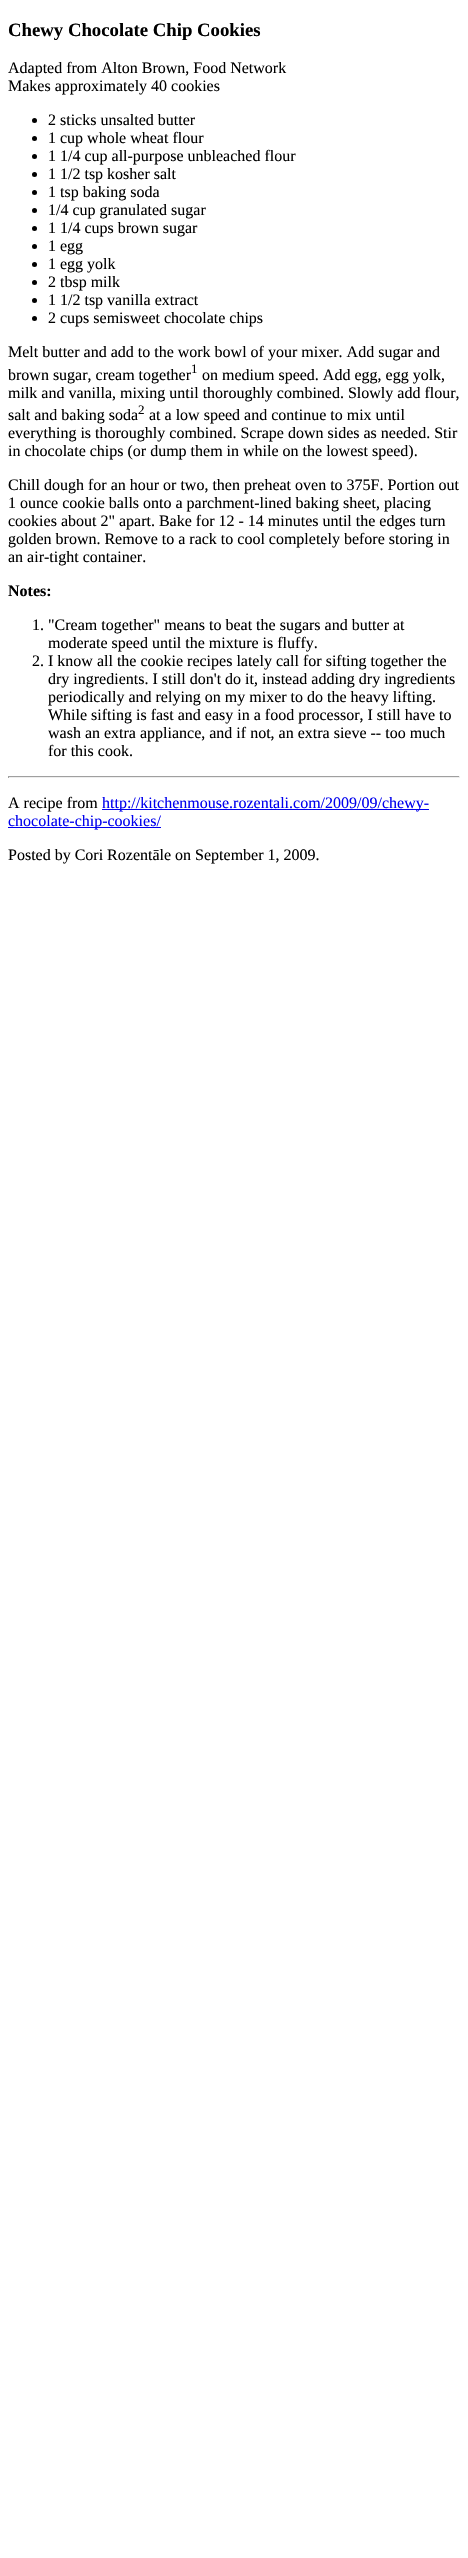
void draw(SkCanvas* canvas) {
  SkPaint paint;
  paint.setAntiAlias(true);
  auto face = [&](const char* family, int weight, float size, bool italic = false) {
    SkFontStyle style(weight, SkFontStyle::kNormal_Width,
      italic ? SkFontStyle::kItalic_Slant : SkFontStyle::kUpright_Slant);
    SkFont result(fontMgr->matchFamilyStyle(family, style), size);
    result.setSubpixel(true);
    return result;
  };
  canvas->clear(0xffffffff);
  paint.setColor(0xff000000);
  canvas->drawCircle(34.5f, 120.5f, 2.5f, paint);
  canvas->drawCircle(34.5f, 138.5f, 2.5f, paint);
  canvas->drawCircle(34.5f, 156.5f, 2.5f, paint);
  canvas->drawCircle(34.5f, 174.5f, 2.5f, paint);
  canvas->drawCircle(34.5f, 192.5f, 2.5f, paint);
  canvas->drawCircle(34.5f, 210.5f, 2.5f, paint);
  canvas->drawCircle(34.5f, 228.5f, 2.5f, paint);
  canvas->drawCircle(34.5f, 246.5f, 2.5f, paint);
  canvas->drawCircle(34.5f, 264.5f, 2.5f, paint);
  canvas->drawCircle(34.5f, 282.5f, 2.5f, paint);
  canvas->drawCircle(34.5f, 300.5f, 2.5f, paint);
  canvas->drawCircle(34.5f, 318.5f, 2.5f, paint);
  {
    const struct { float x, y, w, h; SkColor color; } items[] = {
      {8, 776, 452, 1, 0xff9f9f9f},
      {459, 776, 1, 2, 0xffeeeeee},
      {8, 777, 452, 1, 0xffeeeeee},
      {8, 776, 1, 2, 0xff9f9f9f},
      {102, 809, 327, 1, 0xff0000ee},
      {8, 827, 153, 1, 0xff0000ee},
    };
    for (auto [x, y, w, h, color] : items) {
      paint.setColor(color);
      canvas->drawRect(SkRect::MakeXYWH(x, y, w, h), paint);
    }
  }
  auto f0 = face("Liberation Serif", 700, 18.75f);
  paint.setColor(0xff000000);
  canvas->drawString("Chewy Chocolate Chip Cookies", 8, 36, f0, paint);
  auto f1 = face("Liberation Serif", 400, 16);
  {
    const struct { const char* s; float x, y; } items[] = {
      {"Adapted from Alton Brown, Food Network", 8, 73},
      {"Makes approximately 40 cookies", 8, 91},
      {"2 sticks unsalted butter", 48, 125},
      {"1 cup whole wheat flour", 48, 143},
      {"1 1/4 cup all-purpose unbleached flour", 48, 161},
      {"1 1/2 tsp kosher salt", 48, 179},
      {"1 tsp baking soda", 48, 197},
      {"1/4 cup granulated sugar", 48, 215},
      {"1 1/4 cups brown sugar", 48, 233},
      {"1 egg", 48, 251},
      {"1 egg yolk", 48, 269},
      {"2 tbsp milk", 48, 287},
      {"1 1/2 tsp vanilla extract", 48, 305},
      {"2 cups semisweet chocolate chips", 48, 323},
      {"Melt butter and add to the work bowl of your mixer. Add sugar and", 8, 357},
      {"brown sugar, cream together", 8, 380},
    };
    for (auto [s, x, y] : items) {
      canvas->drawString(s, x, y, f1, paint);
    }
  }
  auto f2 = face("Liberation Serif", 400, 13);
  canvas->drawString("1", 191, 373, f2, paint);
  {
    const struct { const char* s; float x, y; } items[] = {
      {"on medium speed. Add egg, egg yolk,", 202, 380},
      {"milk and vanilla, mixing until thoroughly combined. Slowly add flour,", 8, 398},
      {"salt and baking soda", 8, 420},
    };
    for (auto [s, x, y] : items) {
      canvas->drawString(s, x, y, f1, paint);
    }
  }
  canvas->drawString("2", 138, 414, f2, paint);
  {
    const struct { const char* s; float x, y; } items[] = {
      {"at a low speed and continue to mix until", 149, 420},
      {"everything is thoroughly combined. Scrape down sides as needed. Stir", 8, 438},
      {"in chocolate chips (or dump them in while on the lowest speed).", 8, 456},
      {"Chill dough for an hour or two, then preheat oven to 375F. Portion out", 8, 490},
      {"1 ounce cookie balls onto a parchment-lined baking sheet, placing", 8, 508},
      {"cookies about 2\" apart. Bake for 12 - 14 minutes until the edges turn", 8, 526},
      {"golden brown. Remove to a rack to cool completely before storing in", 8, 544},
      {"an air-tight container.", 8, 562},
    };
    for (auto [s, x, y] : items) {
      canvas->drawString(s, x, y, f1, paint);
    }
  }
  auto f3 = face("Liberation Serif", 700, 16);
  canvas->drawString("Notes:", 8, 596, f3, paint);
  {
    const struct { const char* s; float x, y; } items[] = {
      {"1. \"Cream together\" means to beat the sugars and butter at", 32, 630},
      {"moderate speed until the mixture is fluffy.", 48, 648},
      {"2. I know all the cookie recipes lately call for sifting together the", 32, 666},
      {"dry ingredients. I still don't do it, instead adding dry ingredients", 48, 684},
      {"periodically and relying on my mixer to do the heavy lifting.", 48, 702},
      {"While sifting is fast and easy in a food processor, I still have to", 48, 720},
      {"wash an extra appliance, and if not, an extra sieve -- too much", 48, 738},
      {"for this cook.", 48, 756},
      {"A recipe from", 8, 808},
    };
    for (auto [s, x, y] : items) {
      canvas->drawString(s, x, y, f1, paint);
    }
  }
  paint.setColor(0xff0000ee);
  canvas->drawString("http://kitchenmouse.rozentali.com/2009/09/chewy-", 102, 808, f1, paint);
  canvas->drawString("chocolate-chip-cookies/", 8, 826, f1, paint);
  paint.setColor(0xff000000);
  canvas->drawString("Posted by Cori Rozentāle on September 1, 2009.", 8, 860, f1, paint);
}
